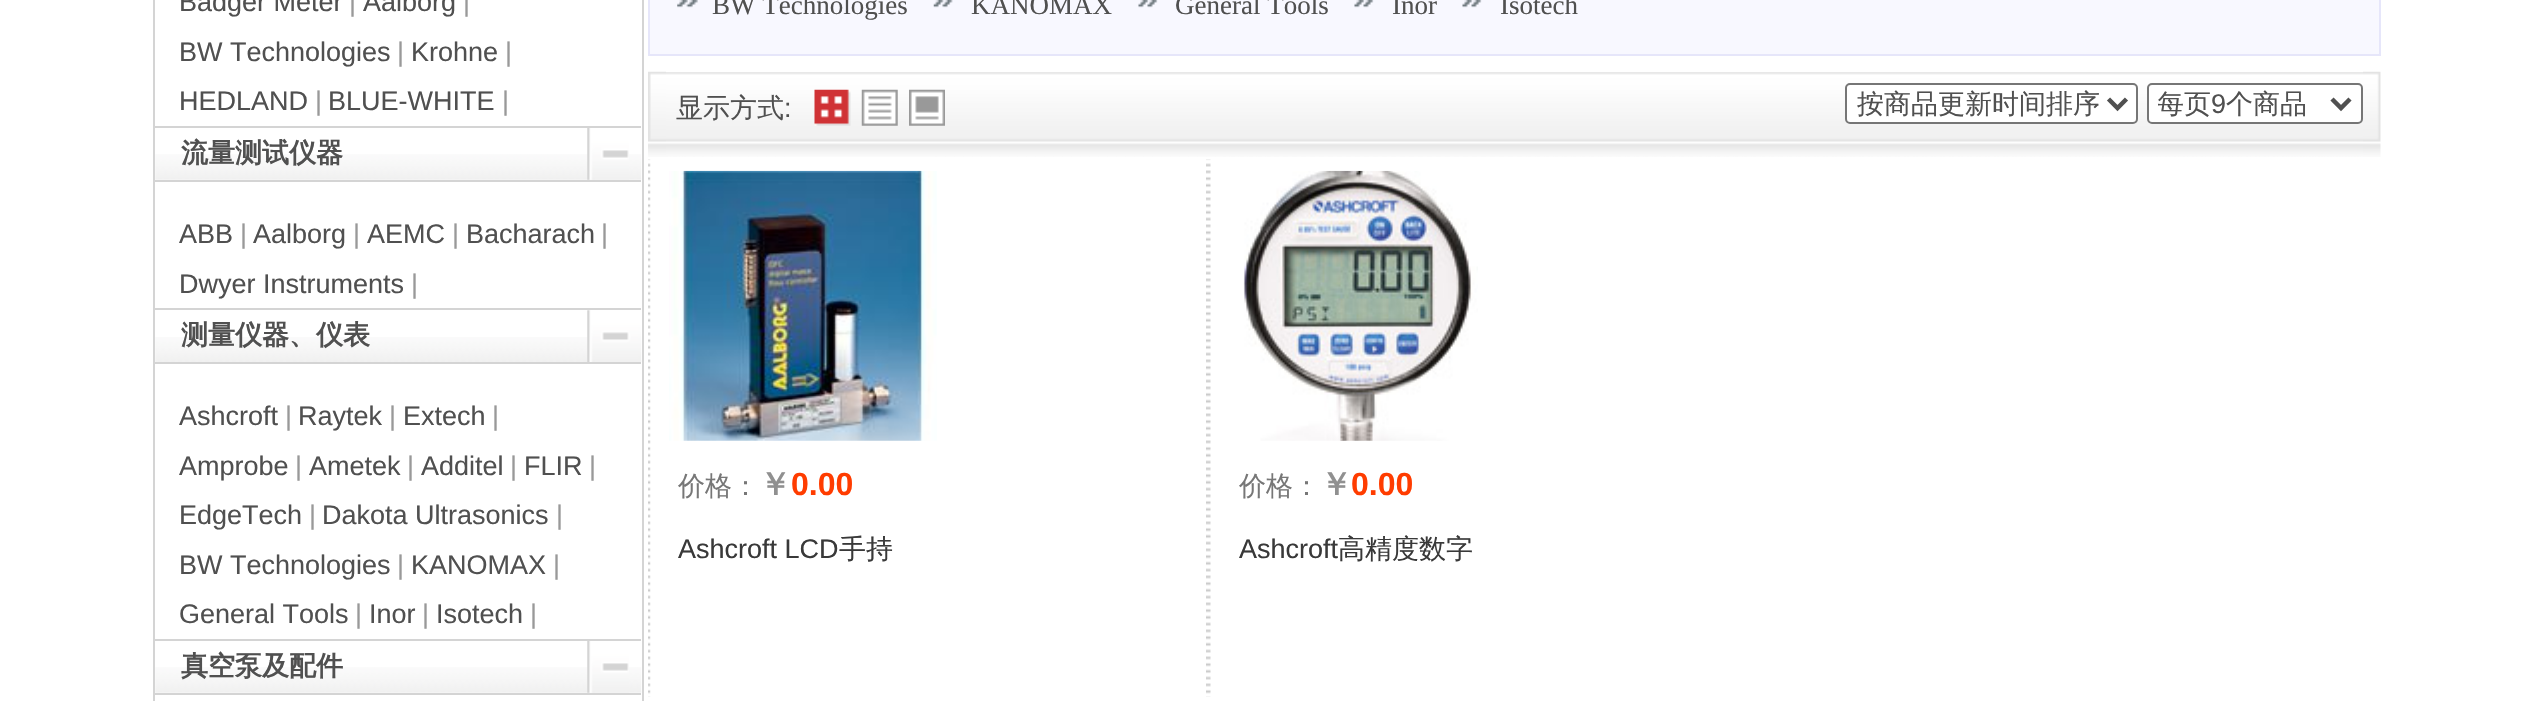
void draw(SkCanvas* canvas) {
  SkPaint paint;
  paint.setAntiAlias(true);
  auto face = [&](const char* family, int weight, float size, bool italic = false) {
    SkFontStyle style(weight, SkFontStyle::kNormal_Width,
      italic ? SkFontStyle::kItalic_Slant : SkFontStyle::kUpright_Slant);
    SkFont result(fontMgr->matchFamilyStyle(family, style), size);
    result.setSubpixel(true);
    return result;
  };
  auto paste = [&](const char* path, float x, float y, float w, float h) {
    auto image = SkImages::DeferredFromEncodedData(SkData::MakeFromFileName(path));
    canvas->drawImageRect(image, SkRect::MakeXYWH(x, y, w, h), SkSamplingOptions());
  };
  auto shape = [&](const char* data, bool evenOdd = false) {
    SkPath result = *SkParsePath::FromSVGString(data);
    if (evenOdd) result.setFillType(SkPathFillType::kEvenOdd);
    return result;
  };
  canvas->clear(0xffffffff);
  paint.setStroke(true);
  paint.setStrokeWidth(2);
  paint.setColor(0xffd4d4d4);
  canvas->drawRect(SkRect::MakeXYWH(154, -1, 489, 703), paint);
  paste("img/1.png", 155, 154, 487, 26);
  paint.setStroke(false);
  canvas->drawRect(SkRect::MakeXYWH(155, 126, 486, 2), paint);
  canvas->drawRect(SkRect::MakeXYWH(155, 180, 486, 2), paint);
  paste("img/2.png", 587, 128, 42, 52);
  paste("img/3.png", 155, 337, 487, 25);
  canvas->drawRect(SkRect::MakeXYWH(155, 308, 486, 2), paint);
  canvas->drawRect(SkRect::MakeXYWH(155, 362, 486, 2), paint);
  paste("img/4.png", 587, 310, 54, 52);
  paste("img/1.png", 155, 667, 487, 26);
  canvas->drawRect(SkRect::MakeXYWH(155, 639, 486, 2), paint);
  canvas->drawRect(SkRect::MakeXYWH(155, 693, 486, 2), paint);
  paste("img/2.png", 587, 641, 42, 52);
  paint.setColor(0xfff8f8ff);
  canvas->drawRect(SkRect::MakeXYWH(649, -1, 1731, 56), paint);
  paint.setStroke(true);
  paint.setColor(0xffe6e6fa);
  canvas->drawRect(SkRect::MakeXYWH(649, -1, 1731, 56), paint);
  paste("img/5.png", 677, 0, 21, 8);
  paste("img/6.png", 933, 0, 20, 8);
  paste("img/7.png", 1138, 0, 20, 8);
  paste("img/7.png", 1354, 0, 20, 8);
  paste("img/7.png", 1462, 0, 20, 8);
  paste("img/8.png", 666, 72, 1697, 85);
  paste("img/9.png", 648, 71, 18, 86);
  paste("img/10.png", 814, 89, 37, 37);
  paste("img/11.png", 861, 89, 37, 37);
  paste("img/12.png", 909, 89, 36, 37);
  paint.setStroke(false);
  paint.setColor(0xffffffff);
  canvas->drawRoundRect(SkRect::MakeXYWH(1846, 84, 291, 39), 4, 4, paint);
  paint.setStroke(true);
  paint.setColor(0xff767676);
  canvas->drawRoundRect(SkRect::MakeXYWH(1846, 84, 291, 39), 4, 4, paint);
  paint.setStrokeWidth(4.5f);
  paint.setColor(0xff505050);
  canvas->drawPath(shape("M2108.5 99L2117.5 108L2126.5 99"), paint);
  paint.setStroke(false);
  paint.setColor(0xffffffff);
  canvas->drawRoundRect(SkRect::MakeXYWH(2148, 84, 214, 39), 4, 4, paint);
  paint.setStroke(true);
  paint.setStrokeWidth(2);
  paint.setColor(0xff767676);
  canvas->drawRoundRect(SkRect::MakeXYWH(2148, 84, 214, 39), 4, 4, paint);
  paint.setStrokeWidth(4.5f);
  paint.setColor(0xff505050);
  canvas->drawPath(shape("M2332 99L2341 108L2350 99"), paint);
  paste("img/13.png", 2363, 71, 18, 86);
  paste("img/14.png", 648, 159, 3, 538);
  paste("img/15.png", 669, 170, 268, 271);
  paste("img/16.png", 1206, 159, 5, 538);
  paste("img/17.png", 1243, 170, 235, 271);
  auto f0 = face("Liberation Sans", 400, 27);
  paint.setStroke(false);
  canvas->drawString("Badger Meter", 179, 11, f0, paint);
  paint.setColor(0xff999999);
  canvas->drawString("|", 349, 11, f0, paint);
  paint.setColor(0xff505050);
  canvas->drawString("Aalborg", 363, 11, f0, paint);
  paint.setColor(0xff999999);
  canvas->drawString("|", 463, 11, f0, paint);
  paint.setColor(0xff505050);
  canvas->drawString("BW Technologies", 179, 61, f0, paint);
  paint.setColor(0xff999999);
  canvas->drawString("|", 397, 61, f0, paint);
  paint.setColor(0xff505050);
  canvas->drawString("Krohne", 411, 61, f0, paint);
  paint.setColor(0xff999999);
  canvas->drawString("|", 505, 61, f0, paint);
  paint.setColor(0xff505050);
  canvas->drawString("HEDLAND", 179, 110, f0, paint);
  paint.setColor(0xff999999);
  canvas->drawString("|", 315, 110, f0, paint);
  paint.setColor(0xff505050);
  canvas->drawString("BLUE-WHITE", 328, 110, f0, paint);
  paint.setColor(0xff999999);
  canvas->drawString("|", 502, 110, f0, paint);
  auto f1 = face("WenQuanYi Zen Hei", 700, 27);
  paint.setColor(0xff505050);
  canvas->drawString("流量测试仪器", 181, 162, f1, paint);
  canvas->drawString("ABB", 179, 243, f0, paint);
  paint.setColor(0xff999999);
  canvas->drawString("|", 240, 243, f0, paint);
  paint.setColor(0xff505050);
  canvas->drawString("Aalborg", 253, 243, f0, paint);
  paint.setColor(0xff999999);
  canvas->drawString("|", 353, 243, f0, paint);
  paint.setColor(0xff505050);
  canvas->drawString("AEMC", 367, 243, f0, paint);
  paint.setColor(0xff999999);
  canvas->drawString("|", 452, 243, f0, paint);
  paint.setColor(0xff505050);
  canvas->drawString("Bacharach", 466, 243, f0, paint);
  paint.setColor(0xff999999);
  canvas->drawString("|", 601, 243, f0, paint);
  paint.setColor(0xff505050);
  canvas->drawString("Dwyer Instruments", 179, 293, f0, paint);
  paint.setColor(0xff999999);
  canvas->drawString("|", 411, 293, f0, paint);
  paint.setColor(0xff505050);
  canvas->drawString("测量仪器、仪表", 181, 344, f1, paint);
  canvas->drawString("Ashcroft", 179, 425, f0, paint);
  paint.setColor(0xff999999);
  canvas->drawString("|", 285, 425, f0, paint);
  paint.setColor(0xff505050);
  canvas->drawString("Raytek", 298, 425, f0, paint);
  paint.setColor(0xff999999);
  canvas->drawString("|", 389, 425, f0, paint);
  paint.setColor(0xff505050);
  canvas->drawString("Extech", 403, 425, f0, paint);
  paint.setColor(0xff999999);
  canvas->drawString("|", 492, 425, f0, paint);
  paint.setColor(0xff505050);
  canvas->drawString("Amprobe", 179, 475, f0, paint);
  paint.setColor(0xff999999);
  canvas->drawString("|", 295, 475, f0, paint);
  paint.setColor(0xff505050);
  canvas->drawString("Ametek", 309, 475, f0, paint);
  paint.setColor(0xff999999);
  canvas->drawString("|", 407, 475, f0, paint);
  paint.setColor(0xff505050);
  canvas->drawString("Additel", 421, 475, f0, paint);
  paint.setColor(0xff999999);
  canvas->drawString("|", 510, 475, f0, paint);
  paint.setColor(0xff505050);
  canvas->drawString("FLIR", 524, 475, f0, paint);
  paint.setColor(0xff999999);
  canvas->drawString("|", 589, 475, f0, paint);
  paint.setColor(0xff505050);
  canvas->drawString("EdgeTech", 179, 524, f0, paint);
  paint.setColor(0xff999999);
  canvas->drawString("|", 309, 524, f0, paint);
  paint.setColor(0xff505050);
  canvas->drawString("Dakota Ultrasonics", 322, 524, f0, paint);
  paint.setColor(0xff999999);
  canvas->drawString("|", 556, 524, f0, paint);
  paint.setColor(0xff505050);
  canvas->drawString("BW Technologies", 179, 574, f0, paint);
  paint.setColor(0xff999999);
  canvas->drawString("|", 397, 574, f0, paint);
  paint.setColor(0xff505050);
  canvas->drawString("KANOMAX", 411, 574, f0, paint);
  paint.setColor(0xff999999);
  canvas->drawString("|", 553, 574, f0, paint);
  paint.setColor(0xff505050);
  canvas->drawString("General Tools", 179, 623, f0, paint);
  paint.setColor(0xff999999);
  canvas->drawString("|", 355, 623, f0, paint);
  paint.setColor(0xff505050);
  canvas->drawString("Inor", 369, 623, f0, paint);
  paint.setColor(0xff999999);
  canvas->drawString("|", 422, 623, f0, paint);
  paint.setColor(0xff505050);
  canvas->drawString("Isotech", 436, 623, f0, paint);
  paint.setColor(0xff999999);
  canvas->drawString("|", 530, 623, f0, paint);
  paint.setColor(0xff505050);
  canvas->drawString("真空泵及配件", 181, 675, f1, paint);
  auto f2 = face("Liberation Serif", 400, 27);
  {
    const struct { const char* s; float x, y; } items[] = {
      {"BW Technologies", 712, 14},
      {"KANOMAX", 971, 14},
      {"General Tools", 1175, 14},
      {"Inor", 1392, 14},
      {"Isotech", 1500, 14},
    };
    for (auto [s, x, y] : items) {
      canvas->drawString(s, x, y, f2, paint);
    }
  }
  auto f3 = face("WenQuanYi Zen Hei", 500, 27);
  canvas->drawString("显示方式", 676, 117, f3, paint);
  canvas->drawString(":", 784, 117, f0, paint);
  canvas->drawString("按商品更新时间排序", 1857, 113, f3, paint);
  canvas->save();
  canvas->clipRect(SkRect::MakeXYWH(2158, 86, 166, 36));
  canvas->drawString("每页", 2157, 113, f3, paint);
  canvas->restore();
  canvas->drawString("9", 2211, 113, f0, paint);
  canvas->drawString("个商品", 2226, 113, f3, paint);
  paint.setColor(0xff777777);
  canvas->drawString("价格：", 678, 495, f3, paint);
  auto f4 = face("WenQuanYi Zen Hei", 700, 32);
  paint.setColor(0xff909090);
  canvas->drawString("￥", 759, 495, f4, paint);
  auto f5 = face("Liberation Sans", 700, 32);
  paint.setColor(0xffff3c00);
  canvas->drawString("0.00", 791, 495, f5, paint);
  paint.setColor(0xff393939);
  canvas->drawString("Ashcroft LCD", 678, 558, f0, paint);
  canvas->drawString("手持", 839, 558, f3, paint);
  paint.setColor(0xff777777);
  canvas->drawString("价格：", 1239, 495, f3, paint);
  paint.setColor(0xff909090);
  canvas->drawString("￥", 1320, 495, f4, paint);
  paint.setColor(0xffff3c00);
  canvas->drawString("0.00", 1351, 495, f5, paint);
  paint.setColor(0xff393939);
  canvas->drawString("Ashcroft", 1239, 558, f0, paint);
  canvas->drawString("高精度数字", 1338, 558, f3, paint);
}
